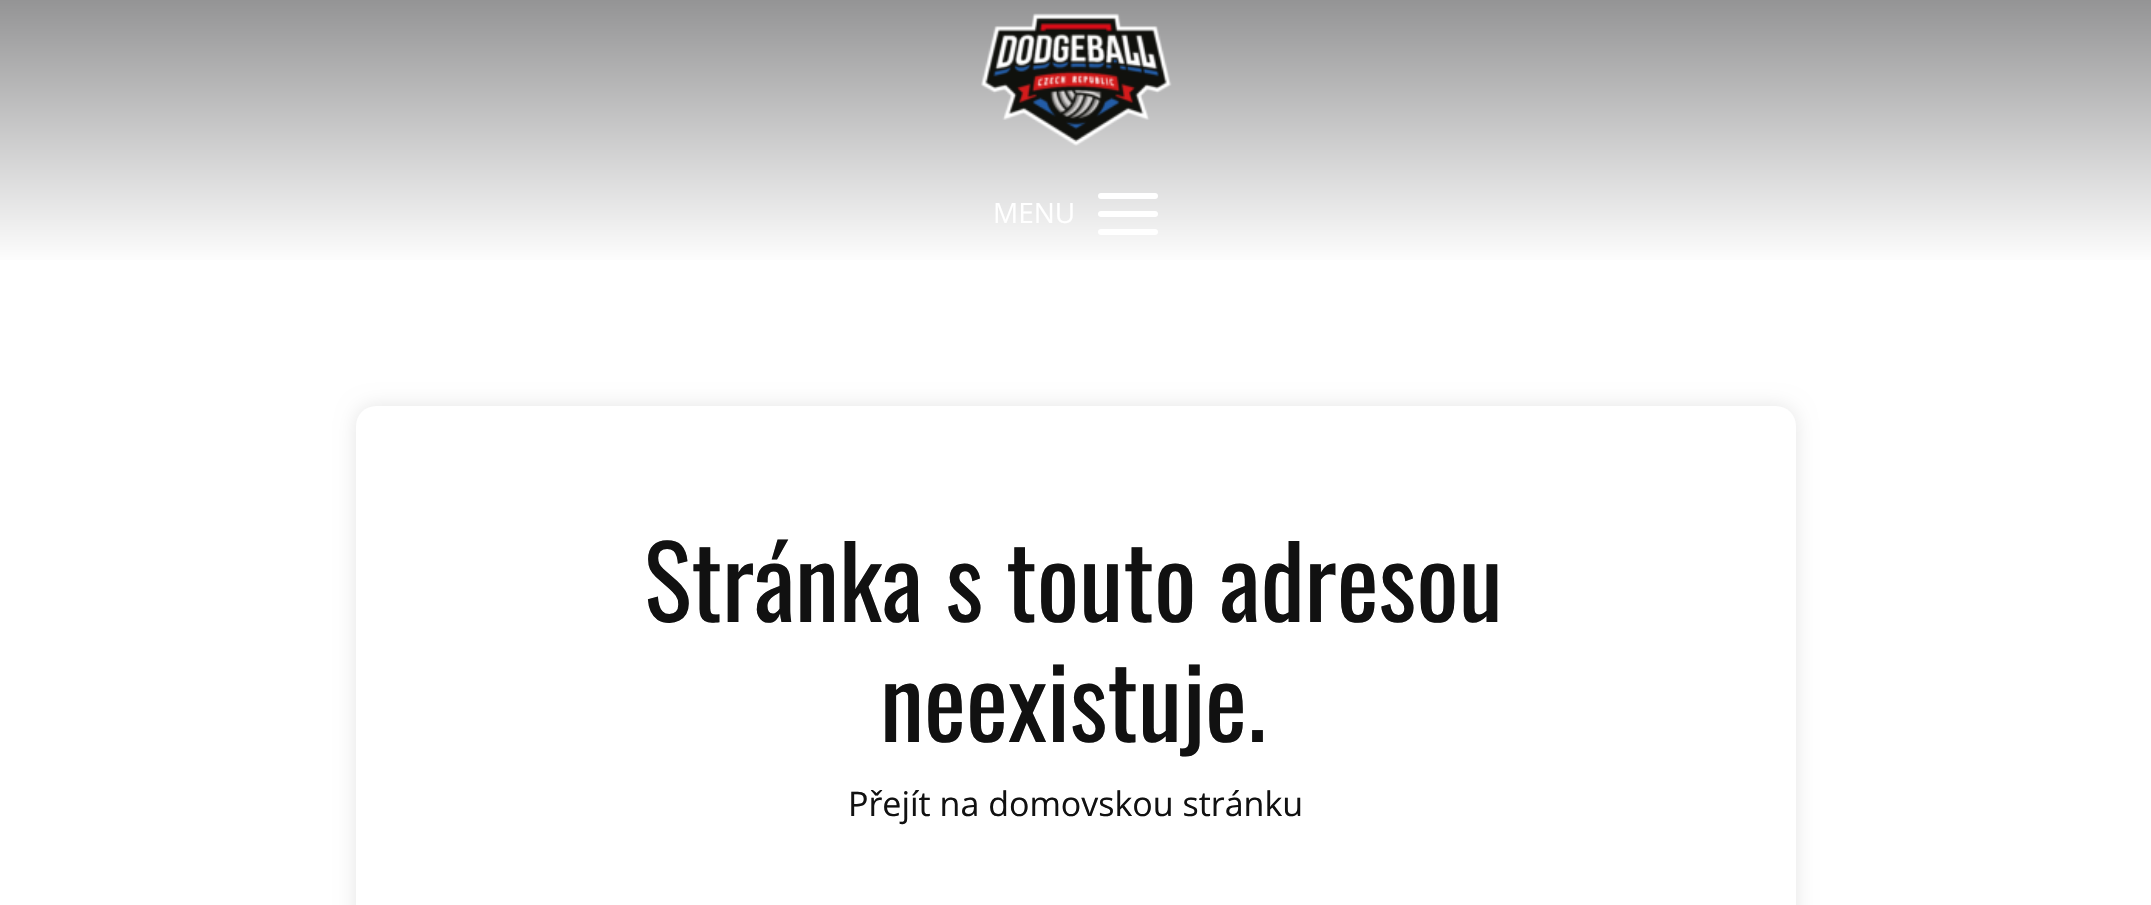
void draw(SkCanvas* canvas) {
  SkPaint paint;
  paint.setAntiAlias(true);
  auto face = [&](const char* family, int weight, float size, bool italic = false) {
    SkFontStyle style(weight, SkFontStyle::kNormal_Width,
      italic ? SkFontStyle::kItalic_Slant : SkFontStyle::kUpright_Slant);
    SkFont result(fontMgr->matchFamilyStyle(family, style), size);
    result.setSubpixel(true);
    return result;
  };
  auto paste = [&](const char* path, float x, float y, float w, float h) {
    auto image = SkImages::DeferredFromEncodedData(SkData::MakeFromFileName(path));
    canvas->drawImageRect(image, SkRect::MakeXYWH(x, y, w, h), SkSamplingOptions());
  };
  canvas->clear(0xffffffff);
  {
    const SkColor colors[] = {0xff949495, 0xffffffff};
    const float stops[] = {0, 1};
    const SkPoint ends[] = {{1076, 0}, {1076, 266}};
    paint.setShader(SkGradientShader::MakeLinear(ends, colors, stops, 2, SkTileMode::kClamp));
    paint.setAlpha(255);
  }
  canvas->drawRect(SkRect::MakeXYWH(0, 0, 2151, 260), paint);
  paste("img/1.png", 981, 13, 191, 133);
  paste("img/2.png", 1098, 193, 60, 42);
  paint.setShader(nullptr);
  paint.setColor(0x1a000000);
  paint.setMaskFilter(SkMaskFilter::MakeBlur(kNormal_SkBlurStyle, 10));
  canvas->drawRoundRect(SkRect::MakeXYWH(356, 406, 1440, 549), 20, 20, paint);
  paint.setMaskFilter(nullptr);
  paint.setColor(0xffffffff);
  canvas->drawRoundRect(SkRect::MakeXYWH(356, 406, 1440, 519), 20, 20, paint);
  auto f0 = face("Open Sans", 400, 28);
  canvas->drawString("MENU", 993, 223, f0, paint);
  auto f1 = face("Oswald", 400, 100);
  paint.setColor(0xff111111);
  canvas->drawString("Stránka s touto adresou", 644, 622, f1, paint);
  canvas->drawString("neexistuje.", 880, 742, f1, paint);
  auto f2 = face("Open Sans", 400, 34);
  canvas->drawString("Přejít na domovskou stránku", 848, 816, f2, paint);
}
